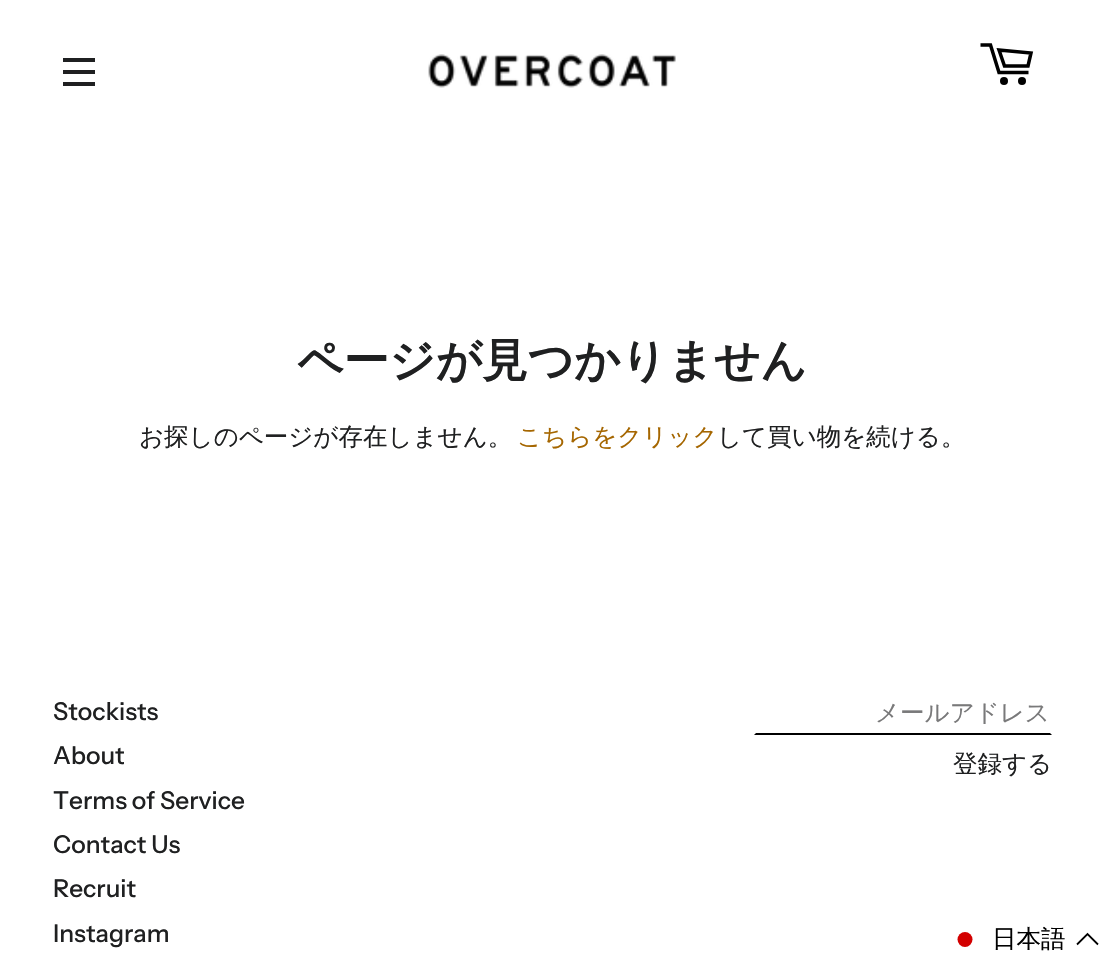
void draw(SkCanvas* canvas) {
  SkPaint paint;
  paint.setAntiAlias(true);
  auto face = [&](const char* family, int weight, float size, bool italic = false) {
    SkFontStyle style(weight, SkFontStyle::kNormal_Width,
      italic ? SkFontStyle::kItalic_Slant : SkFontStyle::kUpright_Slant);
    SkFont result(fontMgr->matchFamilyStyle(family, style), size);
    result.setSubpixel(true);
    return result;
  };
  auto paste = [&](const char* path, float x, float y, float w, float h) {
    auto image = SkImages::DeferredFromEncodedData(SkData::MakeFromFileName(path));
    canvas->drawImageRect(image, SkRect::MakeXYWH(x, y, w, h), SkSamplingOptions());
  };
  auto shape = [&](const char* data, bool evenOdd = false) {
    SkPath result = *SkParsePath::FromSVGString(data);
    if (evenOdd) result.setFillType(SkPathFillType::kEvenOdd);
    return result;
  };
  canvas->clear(0xffffffff);
  {
    const struct { float x, y, w, h; SkColor color; } items[] = {
      {63, 58, 32, 4, 0xff1f2021},
      {63, 70, 32, 4, 0xff1f2021},
      {63, 82, 32, 4, 0xff1f2021},
    };
    for (auto [x, y, w, h, color] : items) {
      paint.setColor(color);
      canvas->drawRect(SkRect::MakeXYWH(x, y, w, h), paint);
    }
  }
  paste("img/1.png", 428, 54, 248, 34);
  paint.setStroke(true);
  paint.setStrokeWidth(3.5f);
  paint.setColor(0xff000000);
  canvas->drawPath(shape("M980.5 45H990.5L999 72.5H1028.5M999 50L1004.5 66H1028L1031 53Z"), paint);
  paint.setStroke(false);
  canvas->drawCircle(1004, 81, 4, paint);
  canvas->drawCircle(1022, 81, 4, paint);
  canvas->drawPath(shape("M1052 735H754L756 733H1050Z"), paint);
  paint.setColor(0xffd30000);
  canvas->drawCircle(965, 939.5f, 7.5f, paint);
  paint.setStroke(true);
  paint.setStrokeWidth(1.8f);
  paint.setColor(0xff000000);
  canvas->drawPath(shape("M1098 944.5L1087.5 934L1077 944.5"), paint);
  auto f0 = face("WenQuanYi Zen Hei", 700, 45.5f);
  paint.setStroke(false);
  paint.setColor(0xff1f2021);
  canvas->drawString("ページが見つかりません", 297, 376, f0, paint);
  auto f1 = face("WenQuanYi Zen Hei", 500, 24.5f);
  canvas->drawString("お探しのページが存在しません。", 139, 445, f1, paint);
  paint.setColor(0xffa56600);
  canvas->drawString("こちらをクリック", 517, 445, f1, paint);
  paint.setColor(0xff1f2021);
  canvas->drawString("して買い物を続ける。", 717, 445, f1, paint);
  auto f2 = face("Instrument Sans", 500, 24.5f);
  {
    const struct { const char* s; float x, y; } items[] = {
      {"Stockists", 53, 720},
      {"About", 53, 764},
      {"Terms of Service", 53, 809},
      {"Contact Us", 53, 853},
      {"Recruit", 53, 897},
      {"Instagram", 53, 942},
    };
    for (auto [s, x, y] : items) {
      canvas->drawString(s, x, y, f2, paint);
    }
  }
  paint.setColor(0xff79797a);
  canvas->drawString("メールアドレス", 875, 721, f1, paint);
  paint.setColor(0xff1f2021);
  canvas->drawString("登録する", 953, 772, f1, paint);
  paint.setColor(0xff000000);
  canvas->drawString("日本語", 992, 947, f1, paint);
}
